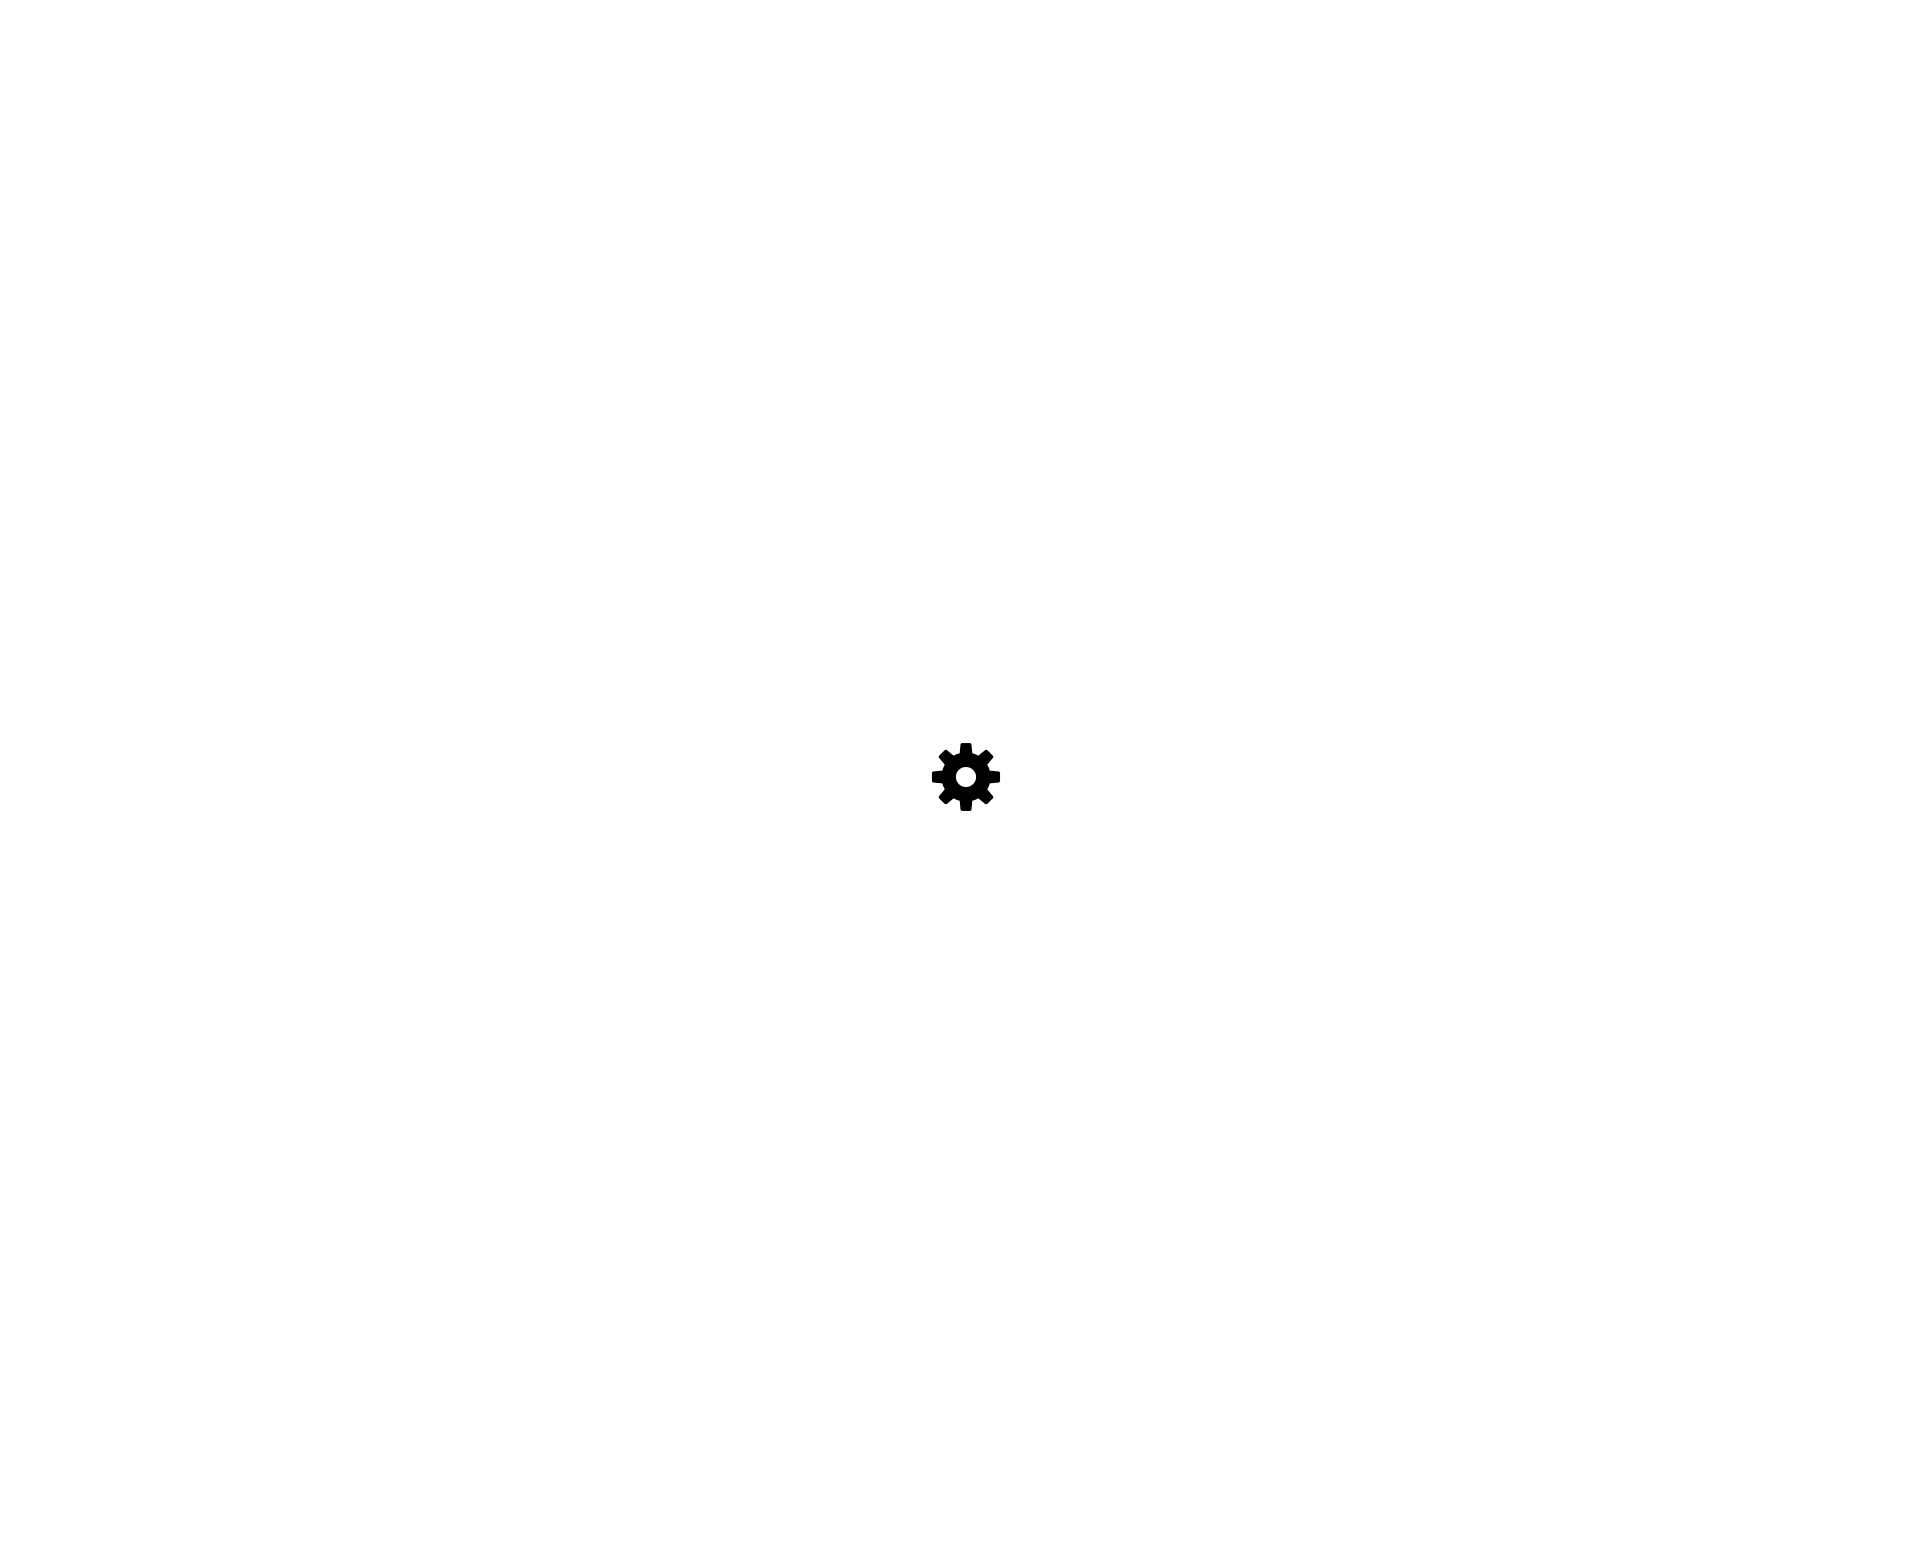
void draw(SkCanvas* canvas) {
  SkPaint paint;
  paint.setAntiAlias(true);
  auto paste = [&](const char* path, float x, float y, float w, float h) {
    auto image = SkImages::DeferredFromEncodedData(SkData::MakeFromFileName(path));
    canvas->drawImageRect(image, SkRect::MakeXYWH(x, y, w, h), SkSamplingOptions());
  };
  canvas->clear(0xffffffff);
  paste("img/1.png", 931, 743, 70, 68);
}
